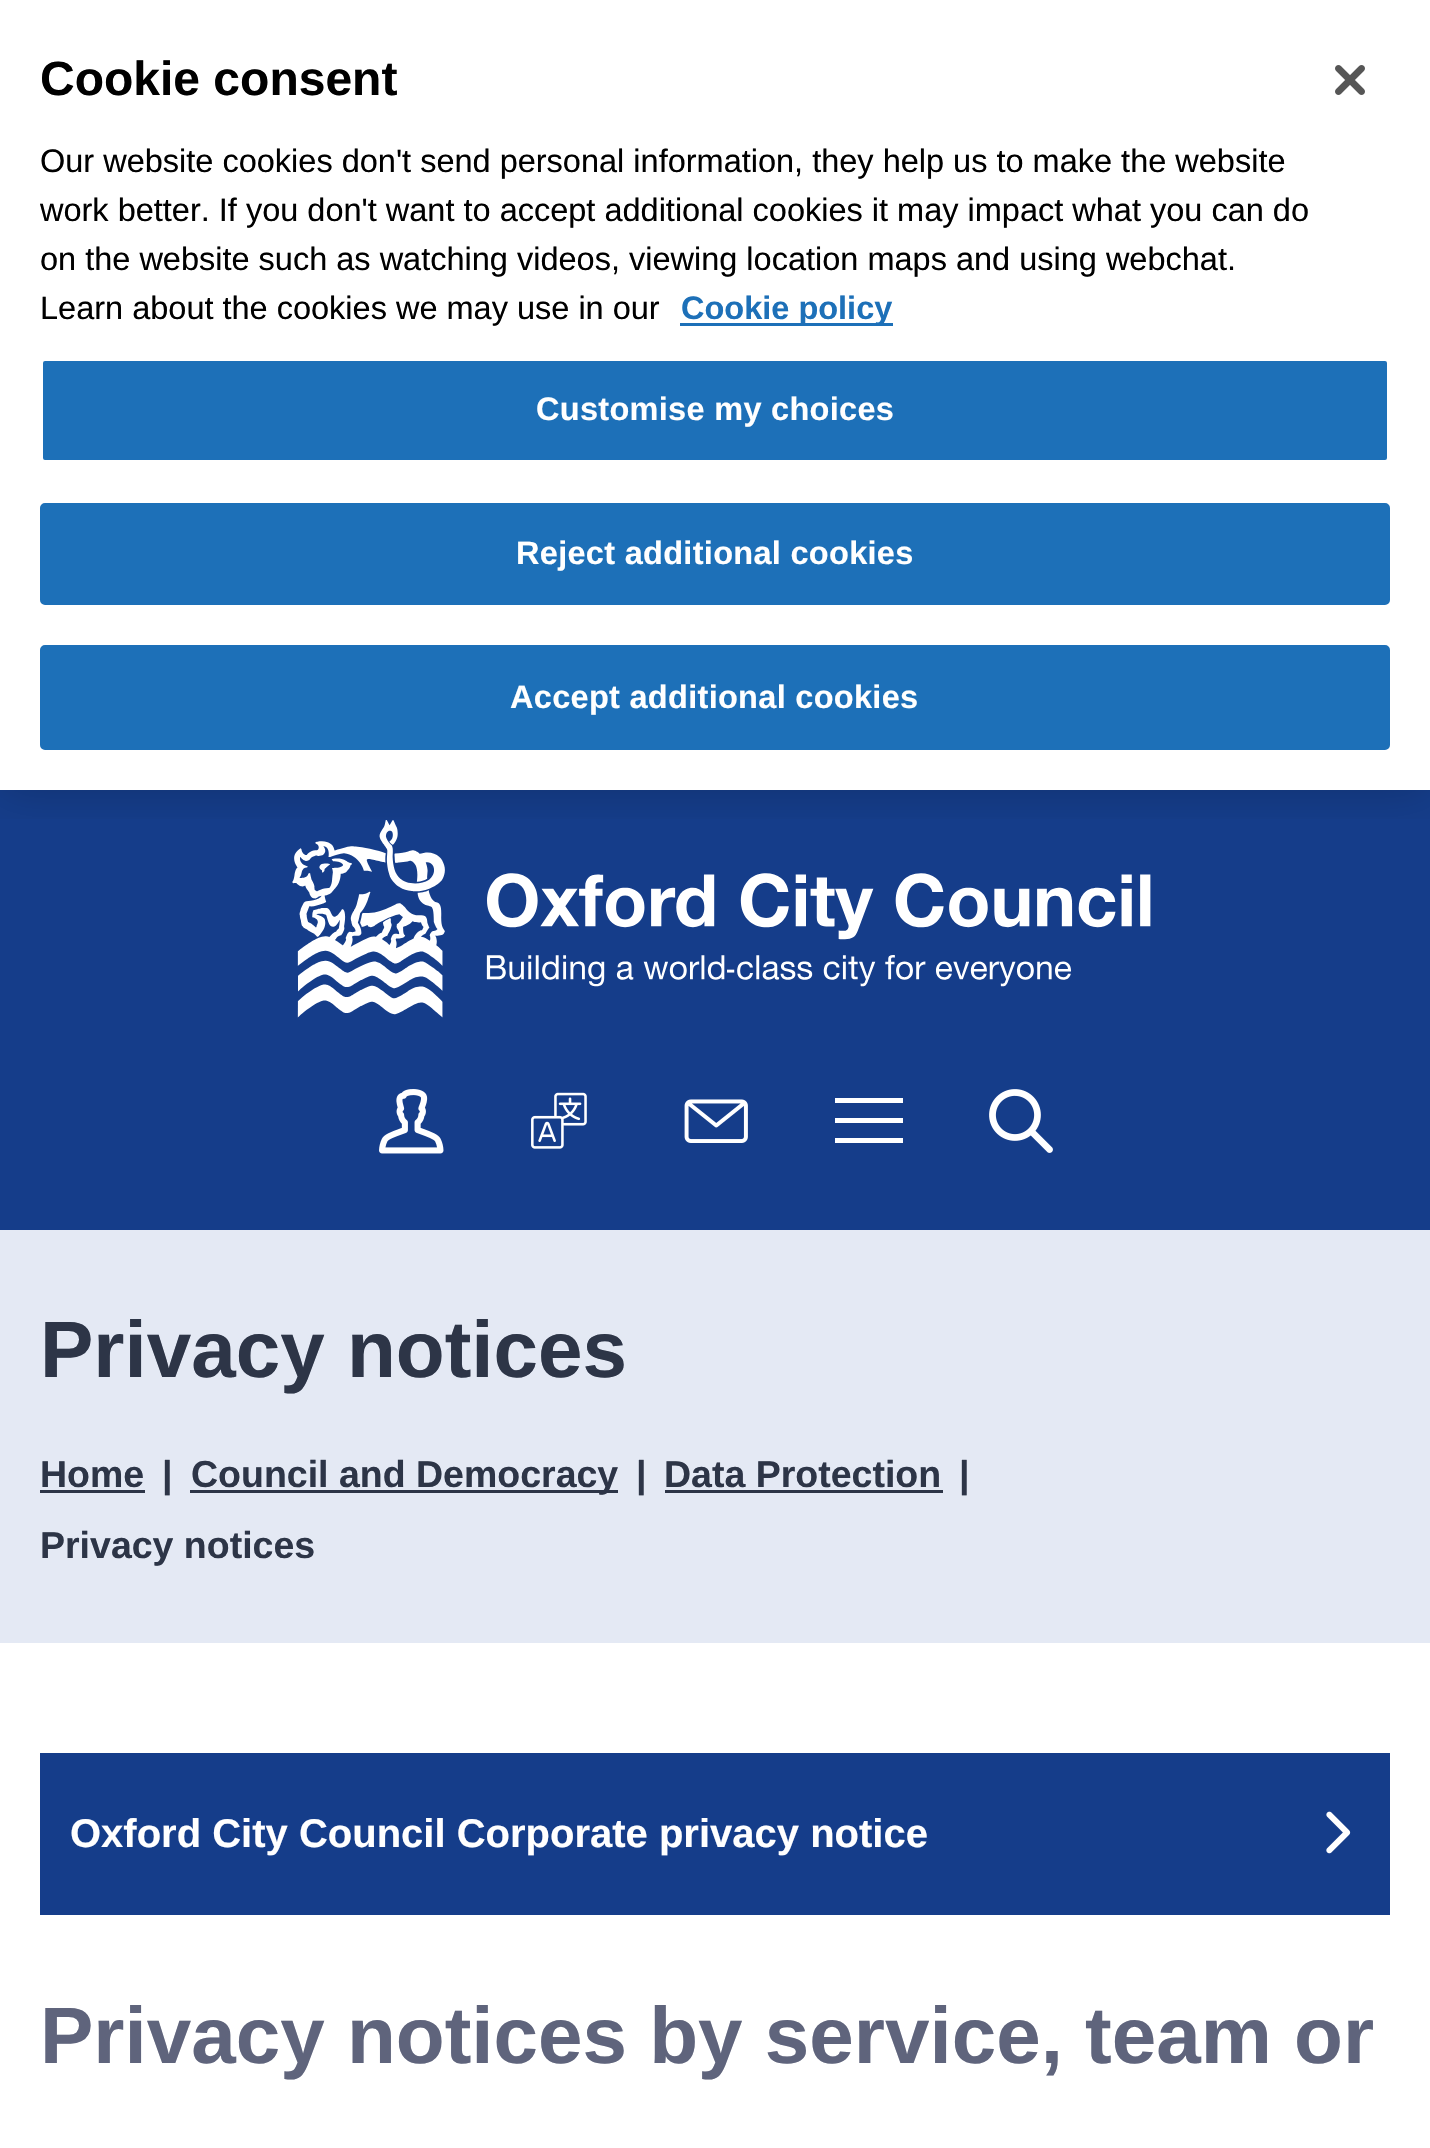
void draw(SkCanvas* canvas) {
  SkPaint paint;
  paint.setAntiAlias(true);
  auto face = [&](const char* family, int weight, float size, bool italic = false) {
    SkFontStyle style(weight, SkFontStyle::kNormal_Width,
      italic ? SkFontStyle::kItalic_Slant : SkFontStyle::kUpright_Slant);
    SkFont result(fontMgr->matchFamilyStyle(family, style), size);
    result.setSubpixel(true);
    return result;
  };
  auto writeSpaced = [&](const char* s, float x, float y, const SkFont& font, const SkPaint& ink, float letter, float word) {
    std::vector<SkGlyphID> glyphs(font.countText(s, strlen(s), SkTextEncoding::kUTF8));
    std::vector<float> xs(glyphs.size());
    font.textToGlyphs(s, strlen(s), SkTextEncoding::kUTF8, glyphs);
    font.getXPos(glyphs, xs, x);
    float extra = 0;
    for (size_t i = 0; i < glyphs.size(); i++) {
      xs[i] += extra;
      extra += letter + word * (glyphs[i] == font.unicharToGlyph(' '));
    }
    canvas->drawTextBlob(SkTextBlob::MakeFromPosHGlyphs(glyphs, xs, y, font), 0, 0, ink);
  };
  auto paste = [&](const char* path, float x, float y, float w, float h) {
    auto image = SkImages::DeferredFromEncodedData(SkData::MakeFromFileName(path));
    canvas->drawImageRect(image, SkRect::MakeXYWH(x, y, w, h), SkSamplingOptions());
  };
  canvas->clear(0xffffffff);
  paint.setColor(0xff153d8a);
  canvas->drawRect(SkRect::MakeXYWH(0, 790, 1430, 440), paint);
  paste("img/2.png", 292, 820, 859, 198);
  canvas->save();
  canvas->clipRect(SkRect::MakeXYWH(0, 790, 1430, 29));
  paint.setColor(0x33000000);
  paint.setMaskFilter(SkMaskFilter::MakeBlur(kNormal_SkBlurStyle, 22.5f));
  canvas->drawRect(SkRect::MakeXYWH(0, 0, 1430, 790), paint);
  paint.setMaskFilter(nullptr);
  canvas->restore();
  paint.setColor(0xff1d70b8);
  canvas->drawRect(SkRect::MakeXYWH(680, 323, 213, 3), paint);
  canvas->drawRoundRect(SkRect::MakeXYWH(41.5f, 359.5f, 1347, 102), 3.5f, 3.5f, paint);
  paint.setStroke(true);
  paint.setStrokeWidth(3);
  paint.setColor(0xffffffff);
  canvas->drawRoundRect(SkRect::MakeXYWH(41.5f, 359.5f, 1347, 102), 3.5f, 3.5f, paint);
  paint.setStroke(false);
  paint.setColor(0xff1d70b8);
  canvas->drawRoundRect(SkRect::MakeXYWH(41.5f, 504.5f, 1347, 99), 3.5f, 3.5f, paint);
  paint.setStroke(true);
  canvas->drawRoundRect(SkRect::MakeXYWH(41.5f, 504.5f, 1347, 99), 3.5f, 3.5f, paint);
  paint.setStroke(false);
  canvas->drawRoundRect(SkRect::MakeXYWH(41.5f, 646.5f, 1347, 102), 3.5f, 3.5f, paint);
  paint.setStroke(true);
  canvas->drawRoundRect(SkRect::MakeXYWH(41.5f, 646.5f, 1347, 102), 3.5f, 3.5f, paint);
  paste("img/1.png", 1335, 65, 30, 30);
  paste("img/3.png", 379, 1089, 65, 65);
  paste("img/4.png", 531, 1092, 56, 57);
  paste("img/5.png", 684, 1099, 64, 44);
  paint.setStroke(false);
  {
    const struct { float x, y, w, h; SkColor color; } items[] = {
      {835, 1098, 68, 5, 0xffffffff},
      {835, 1118, 68, 5, 0xffffffff},
      {835, 1138, 68, 5, 0xffffffff},
    };
    for (auto [x, y, w, h, color] : items) {
      paint.setColor(color);
      canvas->drawRect(SkRect::MakeXYWH(x, y, w, h), paint);
    }
  }
  paste("img/6.png", 989, 1089, 64, 64);
  {
    const struct { float x, y, w, h; SkColor color; } items[] = {
      {0, 1230, 1430, 413, 0xffe4e9f4},
      {40, 1490, 105, 3, 0xff2d3547},
      {190, 1490, 428, 3, 0xff2d3547},
      {665, 1490, 278, 3, 0xff2d3547},
      {40, 1753, 1350, 162, 0xff153d8a},
    };
    for (auto [x, y, w, h, color] : items) {
      paint.setColor(color);
      canvas->drawRect(SkRect::MakeXYWH(x, y, w, h), paint);
    }
  }
  paste("img/7.png", 1326, 1811, 25, 43);
  auto f0 = face("Liberation Sans", 700, 48);
  paint.setColor(0xff000000);
  canvas->drawString("Cookie consent", 40, 95, f0, paint);
  auto f1 = face("Liberation Sans", 400, 32.5f);
  {
    const struct { const char* s; float x, y; } items[] = {
      {"Our website cookies don't send personal information, they help us to make the website", 40, 172},
      {"work better. If you don't want to accept additional cookies it may impact what you can do", 40, 221},
      {"on the website such as watching videos, viewing location maps and using webchat.", 40, 270},
      {"Learn about the cookies we may use in our", 40, 319},
    };
    for (auto [s, x, y] : items) {
      canvas->drawString(s, x, y, f1, paint);
    }
  }
  auto f2 = face("Liberation Sans", 700, 32.5f);
  paint.setColor(0xff1d70b8);
  canvas->drawString("Cookie policy", 681, 319, f2, paint);
  paint.setColor(0xffffffff);
  {
    const struct { const char* s; float x, y; } items[] = {
      {"Customise my choices", 536, 420},
      {"Reject additional cookies", 516, 564},
      {"Accept additional cookies", 510, 708},
    };
    for (auto [s, x, y] : items) {
      writeSpaced(s, x, y, f2, paint, 0.3f, 0);
    }
  }
  auto f3 = face("Liberation Sans", 700, 80);
  paint.setColor(0xff2d3547);
  canvas->drawString("Privacy notices", 40, 1377, f3, paint);
  auto f4 = face("Liberation Sans", 700, 37.5f);
  {
    const struct { const char* s; float x, y; } items[] = {
      {"Home", 40, 1487},
      {"|", 162, 1487},
      {"Council and Democracy", 191, 1487},
      {"|", 636, 1487},
      {"Data Protection", 664, 1487},
      {"|", 959, 1487},
      {"Privacy notices", 40, 1558},
    };
    for (auto [s, x, y] : items) {
      canvas->drawString(s, x, y, f4, paint);
    }
  }
  auto f5 = face("Liberation Sans", 700, 40);
  paint.setColor(0xffffffff);
  canvas->drawString("Oxford City Council Corporate privacy notice", 70, 1847, f5, paint);
  paint.setColor(0xff5f647c);
  canvas->drawString("Privacy notices by service, team or", 40, 2063, f3, paint);
}
